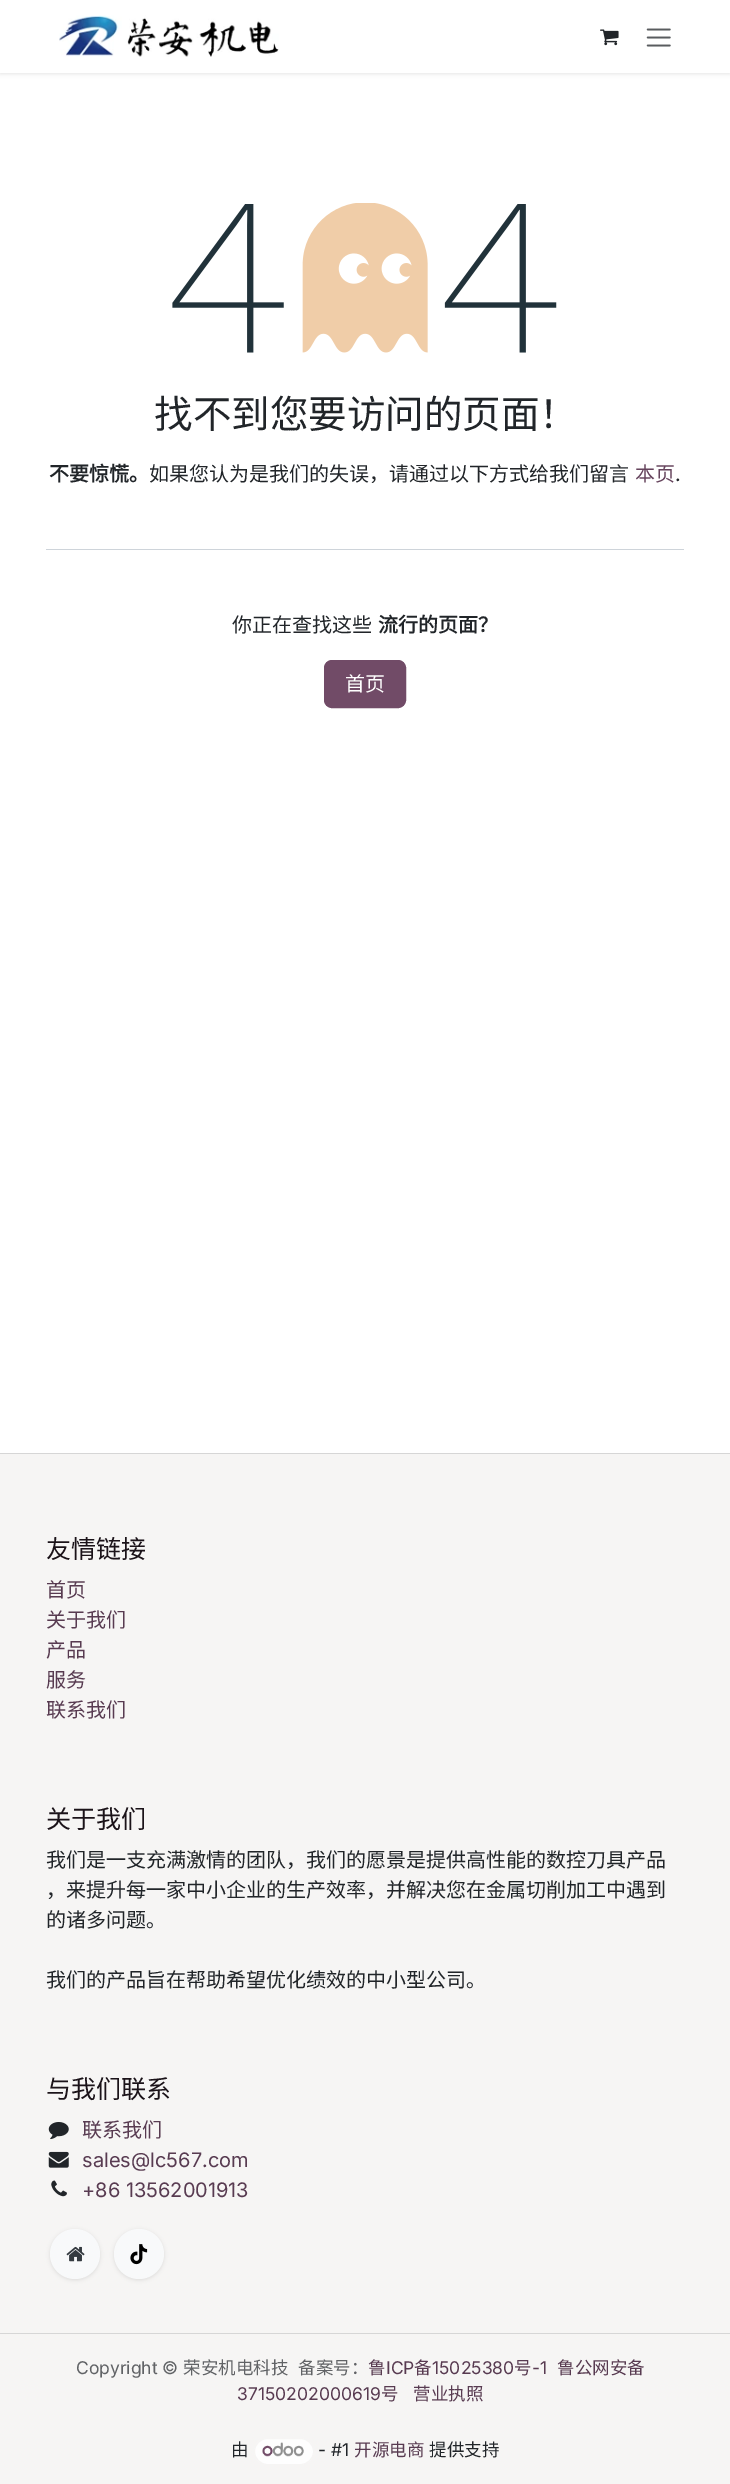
%!PS
<< /PageSize [730 2484] /PageUsesTransparency true >> setpagedevice
/rgb { dup -16 bitshift 255 div exch dup -8 bitshift 255 and 255 div exch 255 and 255 div setrgbcolor } def
/font { [ exch dup neg 0 0 3 -1 roll 0 0 ] selectfont } def
/text { moveto show } def
/alpha { dup .setfillconstantalpha .setstrokeconstantalpha } def
/circle { newpath 0 360 arc closepath } def
/roundrect { 5 dict begin { /r /h /w /y /x } { exch def } forall
  x r add y moveto x w add y 2 copy h add r arct x w add y h add x 1 index r arct
  x y h add x y r arct x y 2 copy exch w add exch r arct closepath end } def
/shadow { 12 dict begin { /a /b /q /h /w /y /x } { exch def } forall gsave /was 0 def
  9 -2 -9 { dup b mul 4 div /e exch def 1 sub .425 mul 2.718 exch exp 1 add a .99 .min exch div /now exch def
    1 1 now sub 1 was sub div sub alpha /was now def
    w h .min e 2 mul add 0 gt { x e sub y e sub w e 2 mul add h e 2 mul add
      q e add b .6 mul add w h .min 2 div e add .min 0 .max roundrect fill } if } for grestore end } def
/picture { 5 dict begin { /h /w /y /x /name } { exch def } forall
  gsave x y translate w h scale
  w h 8 [w 0 0 h 0 0] name (r) file false 3 colorimage grestore end } def
0 .pushpdf14devicefilter
0 2484 translate 1 -1 scale
4 setmiterlimit
/s1 { /NotoSansCJKSC-Regular 38.5 font 16#212529 rgb } def
/s2 { /NotoSansCJKSC-Bold 20 font 16#212529 rgb } def
/s3 { /NotoSansCJKSC-Regular 20 font 16#212529 rgb } def
/s4 { /NotoSansCJKSC-Regular 20 font 16#65435C rgb } def
/s5 { /Inter-Regular 20 font 16#212529 rgb } def
/s6 { /NotoSansCJKSC-Regular 20 font 16#FFFFFF rgb } def
/s7 { /NotoSansCJKSC-Regular 25 font 16#1B1319 rgb } def
/s8 { /NotoSansCJKSC-Regular 20 font 16#583B51 rgb } def
/s9 { /Inter-Regular 20 font 16#583B51 rgb } def
/s10 { /Inter-Regular 17.5 font 16#616366 rgb } def
/s11 { /NotoSansCJKSC-Regular 17.5 font 16#616366 rgb } def
/s12 { /NotoSansCJKSC-Regular 17.5 font 16#583B51 rgb } def
/s13 { /Inter-Regular 17.5 font 16#583B51 rgb } def
/s14 { /NotoSansCJKSC-Regular 17.5 font 16#212529 rgb } def
/s15 { /Inter-Regular 17.5 font 16#212529 rgb } def
16#FFFFFF rgb
0 0 730 2484 rectfill
16#000000 rgb
0 1 730 73 0 2 0.1 shadow
16#FFFFFF rgb
0 0 730 73 rectfill
(pic1.raw) 59 15 220 42 picture
(pic2.raw) 600 29 19 17 picture
(pic3.raw) 646 28 25 19 picture
(pic4.raw) 172 203 385 150 picture
s1
(找不到您要访问的页面！) 154 428 text
s2
(不要惊慌。) 49 481 text
s3
(如果您认为是我们的失误，请通过以下方式给我们留言) 149 481 text
s4
(本页) 635 481 text
s5
(.) 675 481 text
16#CED4DA rgb
46 549 638 1 rectfill
s3
(你正在查找这些) 232 632 text
s2
(流行的页面？) 378 632 text
16#714B67 rgb
324.5 660.5 81 47 7.5 roundrect gsave fill grestore
stroke
s6
(首页) 345 691 text
16#F6F5F4 rgb
0 1454 730 1030 rectfill
16#D6D6D6 rgb
0 1453 730 1 rectfill
0 2333 730 1 rectfill
s7
(友情链接) 46 1558 text
s8
(首页) 46 1597 text
(关于我们) 46 1627 text
(产品) 46 1657 text
(服务) 46 1687 text
(联系我们) 46 1717 text
s7
(关于我们) 46 1828 text
s3
(我们是一支充满激情的团队，我们的愿景是提供高性能的数控刀具产品) 46 1867 text
(，来提升每一家中小企业的生产效率，并解决您在金属切削加工中遇到) 46 1897 text
(的诸多问题。) 46 1927 text
(我们的产品旨在帮助希望优化绩效的中小型公司。) 46 1987 text
s7
(与我们联系) 46 2098 text
(pic5.raw) 48 2122 21 18 picture
s8
(联系我们) 82 2137 text
(pic6.raw) 48 2151 21 17 picture
s9
(sales@lc567.com) 82 2167 text
(pic7.raw) 51 2180 16 17 picture
(+86 13562001913) 82 2197 text
16#000000 rgb
50 2230 50 50 25 2 0.1 shadow
16#F8F9FA rgb
75 2254 25 circle fill
(pic8.raw) 66 2246 19 16 picture
16#000000 rgb
114 2230 50 50 25 2 0.1 shadow
16#F8F9FA rgb
139 2254 25 circle fill
(pic9.raw) 130 2244 18 21 picture
s10
(Copyright ©) 76 2374 text
s11
(荣安机电科技) 183 2374 text
(备案号：) 298 2374 text
s12
(鲁) 368 2374 text
s13
(ICP) 386 2374 text
s12
(备) 414 2374 text
s13
(15025380) 432 2374 text
s12
(号) 514 2374 text
s13
(-1) 532 2374 text
s12
(鲁公网安备) 557 2374 text
s13
(37150202000619) 237 2400 text
s12
(号) 381 2400 text
(营业执照) 413 2400 text
s14
(由) 231 2456 text
16#FEFEFE rgb
254.5 2438.5 59 26 13 roundrect gsave fill grestore
16#F6F5F4 rgb
stroke
(pic10.raw) 262 2442 42 15 picture
s15
(- #1) 318 2456 text
s12
(开源电商) 354 2456 text
s14
(提供支持) 429 2456 text
.poppdf14devicefilter showpage
